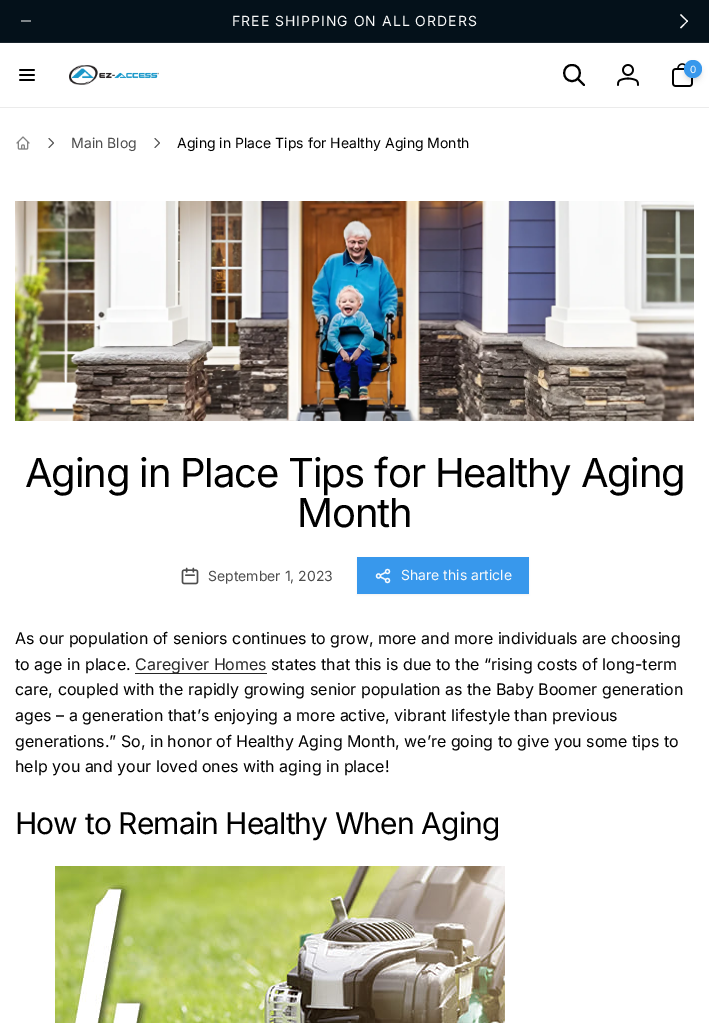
%!PS
<< /PageSize [709 1023] /PageUsesTransparency true >> setpagedevice
/rgb { dup -16 bitshift 255 div exch dup -8 bitshift 255 and 255 div exch 255 and 255 div setrgbcolor } def
/font { [ exch dup neg 0 0 3 -1 roll 0 0 ] selectfont } def
/text { moveto show } def
/alpha { dup .setfillconstantalpha .setstrokeconstantalpha } def
/circle { newpath 0 360 arc closepath } def
/roundrect { 5 dict begin { /r /h /w /y /x } { exch def } forall
  x r add y moveto x w add y 2 copy h add r arct x w add y h add x 1 index r arct
  x y h add x y r arct x y 2 copy exch w add exch r arct closepath end } def
/shadow { 12 dict begin { /a /b /q /h /w /y /x } { exch def } forall gsave /was 0 def
  9 -2 -9 { dup b mul 4 div /e exch def 1 sub .425 mul 2.718 exch exp 1 add a .99 .min exch div /now exch def
    1 1 now sub 1 was sub div sub alpha /was now def
    w h .min e 2 mul add 0 gt { x e sub y e sub w e 2 mul add h e 2 mul add
      q e add b .6 mul add w h .min 2 div e add .min 0 .max roundrect fill } if } for grestore end } def
/picture { 5 dict begin { /h /w /y /x /name } { exch def } forall
  gsave x y translate w h scale
  w h 8 [w 0 0 h 0 0] name (r) file false 3 colorimage grestore end } def
0 .pushpdf14devicefilter
0 1023 translate 1 -1 scale
4 setmiterlimit
/s1 { /Inter-Regular 10 font 16#FAFAFA rgb } def
/s2 { /Inter-Regular 14 font 16#4D4D4D rgb } def
/s3 { /Inter-Regular 14 font 16#000000 rgb } def
/s4 { /Inter-Regular 14 font 16#FAFAFA rgb } def
/s5 { /Inter-Regular 16 font 16#000000 rgb } def
/s6 { /Inter-Regular 16 font 16#262626 rgb } def
16#FFFFFF rgb
0 0 709 1023 rectfill
16#04111A rgb
0 0 709 42 rectfill
16#18242C rgb
0 42 709 1 rectfill
16#7F868A rgb
21 20 10 2 rectfill
/Inter-Regular 14 font
16#FAFAFA rgb
232 26 moveto 1 0 (FREE SHIPPING ON ALL ORDERS) ashow
680 15 moveto 681 14 lineto 688 21 lineto 687.5 22 lineto closepath fill
687.5 20.5 moveto 688 21 lineto 681 28.5 lineto 680 27.5 lineto closepath fill
16#EBEBEB rgb
0 107 709 1 rectfill
(pic1.raw) 19 69 16 12 picture
(pic2.raw) 69 65 90 20 picture
16#000000 rgb
2 setlinewidth
1 setlinecap
1 setlinejoin
584 85 moveto 577.5 78.5 lineto 572 81 moveto 582.5 81 582.5 65 572 65 curveto 561.5 65 561.5 81 572 81 curveto closepath stroke
(pic3.raw) 617 64 22 22 picture
(pic4.raw) 672 63 21 24 picture
685 63 16 16 8 2 0.06 shadow
685 65 16 16 8 3 0.1 shadow
16#3898EC rgb
693 69 9 circle fill
s1
(0) 690 73 text
(pic5.raw) 16 136 14 14 picture
16#4D4D4D rgb
1 setlinewidth
49 138.5 moveto 53.5 143 lineto 49 147.5 lineto stroke
s2
(Main Blog) 71 148 text
155 138.5 moveto 159.5 143 lineto 155 147.5 lineto stroke
s3
(Aging in Place Tips for Healthy Aging Month) 177 148 text
(pic6.raw) 15 201 679 220 picture
/Inter-Regular 40 font
25 487 moveto -1.2 0 (Aging in Place Tips for Healthy Aging) ashow
297 527 moveto -1.2 0 (Month) ashow
(pic7.raw) 181 567 18 18 picture
s2
(September 1, 2023) 208 581 text
16#000000 rgb
357 558 172 37 0 1 0.05 shadow
16#3898EC rgb
357 557 172 37 rectfill
(pic8.raw) 375 568 16 16 picture
s4
(Share this article) 401 580 text
s5
(As our population of seniors continues to grow, more and more individuals are choosing) 15 644 text
(to age in place.) 15 670 text
16#262626 rgb
135 673 132 1 rectfill
(Caregiver Homes) 135 670 text
s5
(states that this is due to the “rising costs of long-term) 271 670 text
(care, coupled with the rapidly growing senior population as the Baby Boomer generation) 15 695 text
(ages – a generation that’s enjoying a more active, vibrant lifestyle than previous) 15 721 text
(generations.” So, in honor of Healthy Aging Month, we’re going to give you some tips to) 15 747 text
(help you and your loved ones with aging in place!) 15 772 text
/Inter-Regular 30 font
15 834 moveto -0.9 0 (How to Remain Healthy When Aging) ashow
(pic9.raw) 55 866 450 157 picture
.poppdf14devicefilter showpage
